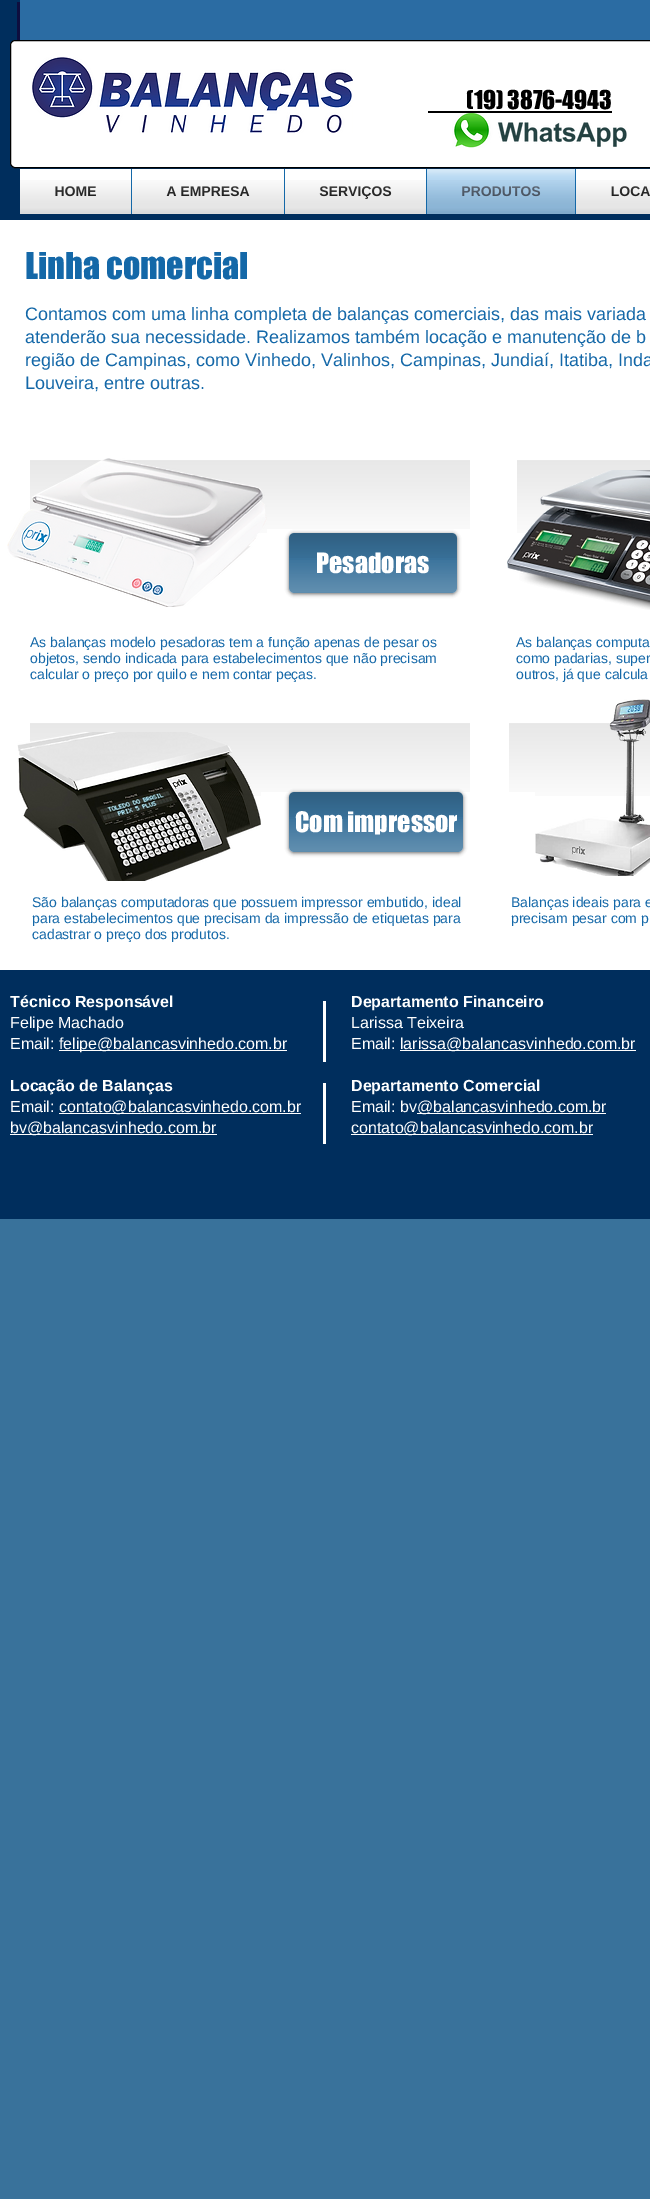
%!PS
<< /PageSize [650 2199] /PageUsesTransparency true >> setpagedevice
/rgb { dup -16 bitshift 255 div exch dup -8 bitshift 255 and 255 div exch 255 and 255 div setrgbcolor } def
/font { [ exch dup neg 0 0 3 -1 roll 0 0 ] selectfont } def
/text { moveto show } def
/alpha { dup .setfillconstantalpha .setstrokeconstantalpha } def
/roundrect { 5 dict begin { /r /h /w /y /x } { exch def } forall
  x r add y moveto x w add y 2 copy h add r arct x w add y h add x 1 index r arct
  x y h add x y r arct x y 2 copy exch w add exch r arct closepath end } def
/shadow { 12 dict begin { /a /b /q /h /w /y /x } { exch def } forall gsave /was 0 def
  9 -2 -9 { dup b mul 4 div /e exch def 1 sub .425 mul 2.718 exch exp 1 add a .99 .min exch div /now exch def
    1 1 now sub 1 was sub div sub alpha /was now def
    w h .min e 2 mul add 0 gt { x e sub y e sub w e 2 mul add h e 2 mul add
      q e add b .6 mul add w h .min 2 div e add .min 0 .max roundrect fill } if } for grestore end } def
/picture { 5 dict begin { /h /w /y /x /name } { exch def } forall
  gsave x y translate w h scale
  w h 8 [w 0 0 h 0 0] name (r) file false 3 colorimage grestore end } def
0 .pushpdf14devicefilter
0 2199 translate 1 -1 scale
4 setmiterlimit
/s1 { /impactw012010-Regular 24 font 16#000000 rgb } def
/s2 { /LiberationSans-Bold 14 font 16#000000 rgb } def
/s3 { /LiberationSans-Bold 14 font 16#313E4F rgb } def
/s4 { /impactw012010-Regular 34 font 16#1468A8 rgb } def
/s5 { /LiberationSans-Regular 18 font 16#1468A8 rgb } def
/s6 { /impactw012010-Regular 26 font 16#FFFFFF rgb } def
/s7 { /LiberationSans-Regular 14 font 16#1468A8 rgb } def
/s8 { /LiberationSans-Bold 16 font 16#FFFFFF rgb } def
/s9 { /LiberationSans-Regular 16 font 16#FFFFFF rgb } def
16#39729B rgb
0 0 650 2199 rectfill
16#002E5D rgb
0 0 650 220 rectfill
16#0E0E3F rgb
17 2 moveto 17 50 lineto 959 50 lineto 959 46 lineto 20 46 lineto 20 2 lineto closepath fill
16#2B6CA3 rgb
20 0 630 40 rectfill
16#FFFFFF rgb
10.5 40.5 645 127 4.5 roundrect gsave fill grestore
16#000000 rgb
stroke
(pic1.raw) 32 57 321 76 picture
s1
(\(19\) 3876-4943) 466 109 text
428 111 184 2 rectfill
(pic2.raw) 452 113 175 35 picture
16#FFFFFF rgb
20 169 111 45 rectfill
s2
(HOME) 55 196 text
(pic3.raw) 55 186 41 10 picture
(pic4.raw) 20 180 111 34 picture
16#FFFFFF rgb
132 169 152 45 rectfill
16#1468A8 rgb
131 169 1 45 rectfill
s2
(A EMPRESA) 166 196 text
(pic5.raw) 167 186 82 10 picture
(pic6.raw) 132 180 152 34 picture
16#FFFFFF rgb
285 169 141 45 rectfill
16#1468A8 rgb
284 169 1 45 rectfill
s2
(SERVIÇOS) 319 196 text
(pic7.raw) 320 186 71 13 picture
(pic8.raw) 285 180 141 34 picture
16#95C6EC rgb
427 169 148 45 rectfill
16#1468A8 rgb
426 169 1 45 rectfill
s3
(PRODUTOS) 461 196 text
(pic9.raw) 427 169 148 42 picture
(pic10.raw) 427 180 148 34 picture
16#FFFFFF rgb
576 169 74 45 rectfill
16#1468A8 rgb
575 169 1 45 rectfill
s2
(LOCA) 611 196 text
(pic11.raw) 611 186 39 10 picture
(pic12.raw) 576 180 74 34 picture
16#FFFFFF rgb
0 220 650 750 rectfill
s4
(Linha comercial) 25 279 text
s5
(Contamos com uma linha completa de balanças comerciais, das mais variada) 25 320 text
(atenderão sua necessidade. Realizamos também locação e manutenção de b) 25 343 text
(região de Campinas, como Vinhedo, Valinhos, Campinas, Jundiaí, Itatiba, Inda) 25 366 text
(Louveira, entre outras.) 25 389 text
(pic13.raw) 30 460 440 69 picture
(pic14.raw) 7 458 260 149 picture
16#000000 rgb
289 534 168 60 5 2 0.6 shadow
16#39729B rgb
289 533 168 60 5 roundrect fill
(pic15.raw) 289 533 168 25 picture
(pic16.raw) 289 560 168 33 picture
s6
(Pesadoras) 316 573 text
(pic17.raw) 517 460 133 69 picture
(pic18.raw) 507 470 143 140 picture
s7
(As balanças modelo pesadoras tem a função apenas de pesar os) 30 647 text
(objetos, sendo indicada para estabelecimentos que não precisam) 30 663 text
(calcular o preço por quilo e nem contar peças.) 30 679 text
(As balanças computa) 516 647 text
(como padarias, super) 516 663 text
(outros, já que calcula) 516 679 text
(pic13.raw) 30 723 440 69 picture
(pic19.raw) 17 732 244 149 picture
16#000000 rgb
289 793 174 60 5 2 0.6 shadow
16#39729B rgb
289 792 174 60 5 roundrect fill
(pic20.raw) 289 792 174 25 picture
(pic21.raw) 289 819 174 33 picture
s6
(Com impressor) 295 832 text
(pic23.raw) 509 723 141 69 picture
(pic22.raw) 535 699 115 177 picture
s7
(São balanças computadoras que possuem impressor embutido, ideal) 32 907 text
(para estabelecimentos que precisam da impressão de etiquetas para) 32 923 text
(cadastrar o preço dos produtos.) 32 939 text
(Balanças ideais para e) 511 907 text
(precisam pesar com p) 511 923 text
16#002E5D rgb
0 970 650 249 rectfill
s8
(Técnico Responsável) 10 1007 text
s9
(Felipe Machado) 10 1028 text
(Email:) 10 1049 text
59 1050 228 1 rectfill
(felipe@balancasvinhedo.com.br) 59 1049 text
323 1001 3 61 rectfill
s8
(Departamento Financeiro) 351 1007 text
s9
(Larissa Teixeira) 351 1028 text
(Email: larissa) 351 1049 text
400 1050 236 1 rectfill
(@balancasvinhedo.com.br) 446 1049 text
s8
(Locação de Balanças) 10 1091 text
s9
(Email:) 10 1112 text
59 1113 242 1 rectfill
(contato@balancasvinhedo.com.br) 59 1112 text
10 1134 207 1 rectfill
(bv@balancasvinhedo.com.br) 10 1133 text
323 1083 3 61 rectfill
s8
(Departamento Comercial) 351 1091 text
s9
(Email: bv) 351 1112 text
417 1113 189 1 rectfill
(@balancasvinhedo.com.br) 417 1112 text
351 1134 242 1 rectfill
(contato@balancasvinhedo.com.br) 351 1133 text
.poppdf14devicefilter showpage
